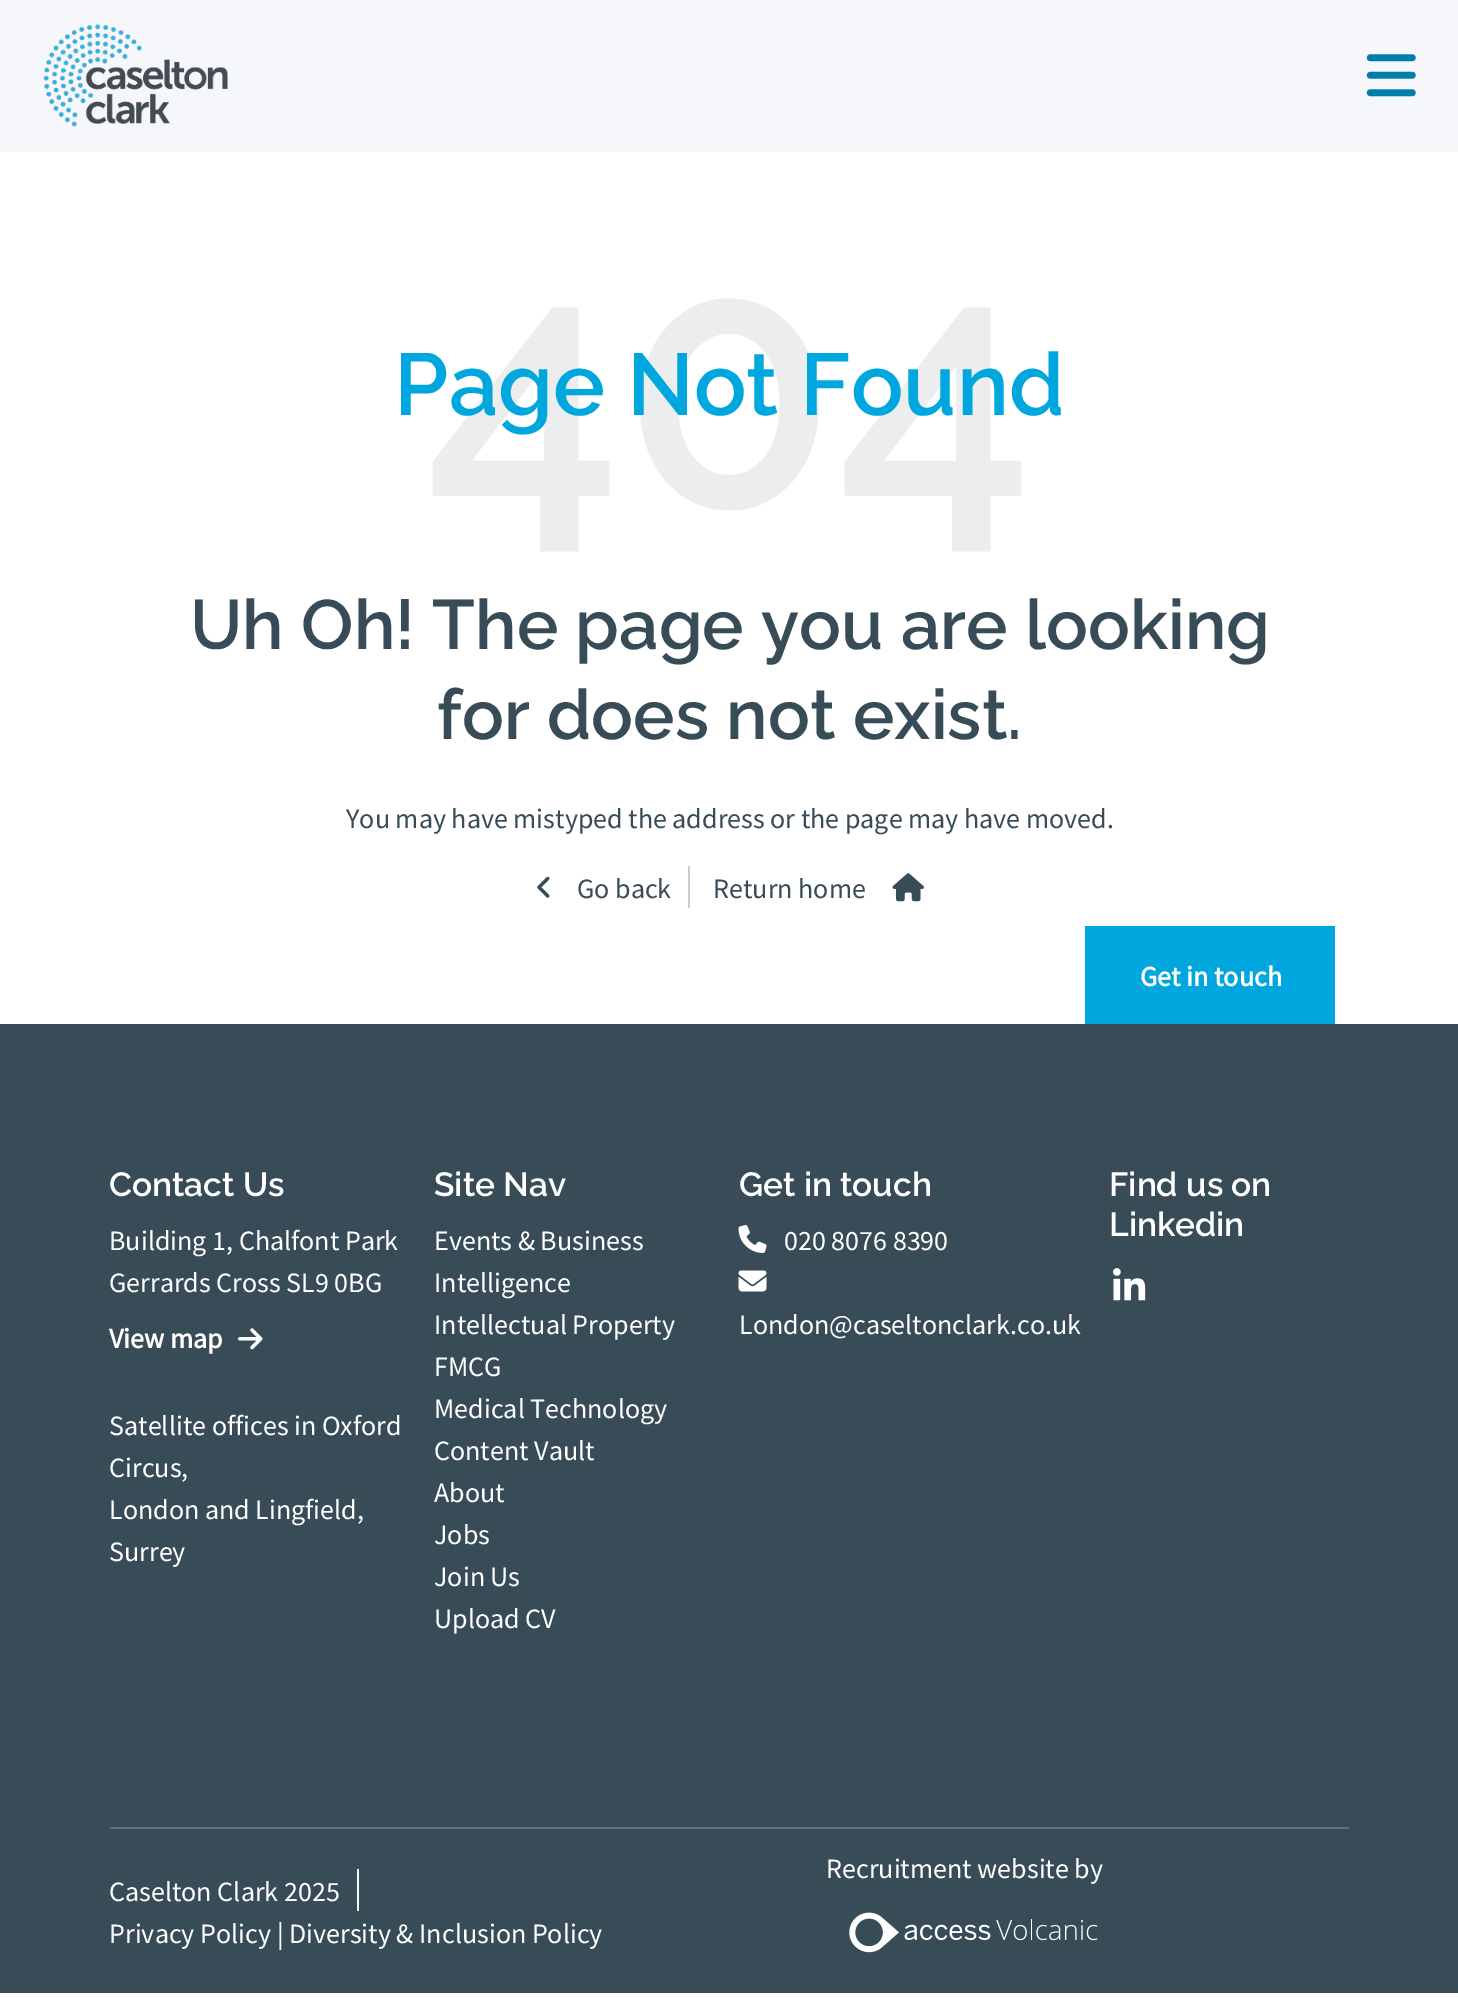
%!PS
<< /PageSize [1458 2014] >> setpagedevice
/rgb { dup -16 bitshift 255 div exch dup -8 bitshift 255 and 255 div exch 255 and 255 div setrgbcolor } def
/font { [ exch dup neg 0 0 3 -1 roll 0 0 ] selectfont } def
/text { moveto show } def
/picture { 5 dict begin { /h /w /y /x /name } { exch def } forall
  gsave x y translate w h scale
  w h 8 [w 0 0 h 0 0] name (r) file false 3 colorimage grestore end } def
0 2014 translate 1 -1 scale
4 setmiterlimit
/s1 { /Raleway-SemiBold 350 font 16#EBEDEE rgb } def
/s2 { /Raleway-SemiBold 87.5 font 16#00A7DE rgb } def
/s3 { /Raleway-SemiBold 69.7 font 16#374C56 rgb } def
/s4 { /SourceSansPro-Regular 28 font 16#374C56 rgb } def
/s5 { /SourceSansPro-Bold 28 font 16#FFFFFF rgb } def
/s6 { /Raleway-SemiBold 33.5 font 16#FFFFFF rgb } def
/s7 { /SourceSansPro-Regular 28 font 16#FFFFFF rgb } def
16#FFFFFF rgb
0 0 1458 2014 rectfill
16#F5F7FA rgb
0 0 1458 152 rectfill
(pic1.raw) 43 24 185 103 picture
(pic2.raw) 1366 54 50 43 picture
s1
(404) 425 507 text
s2
(Page Not Found) 394 415 text
s3
(Uh Oh! The page you are looking) 190 649 text
(for does not exist.) 437 739 text
s4
(You may have mistyped the address or the page may have moved.) 346 828 text
16#CCCCCC rgb
688 866 2 42 rectfill
(pic3.raw) 537 876 13 22 picture
s4
(Go back) 577 898 text
(Return home) 713 898 text
(pic4.raw) 892 873 32 29 picture
0 1024 1458 969 rectfill
16#00A7DE rgb
1085 926 250 98 rectfill
s5
(Get in touch) 1140 986 text
16#5F7078 rgb
110 1827 1239 2 rectfill
s6
(Contact Us) 109 1196 text
s7
(Building 1, Chalfont Park) 109 1250 text
(Gerrards Cross SL9 0BG) 109 1292 text
s5
(View map) 109 1348 text
(pic5.raw) 238 1328 25 22 picture
s7
(Satellite offices in Oxford) 109 1435 text
(Circus,) 109 1477 text
(London and Lingfield,) 109 1519 text
(Surrey) 109 1561 text
s6
(Site Nav) 434 1196 text
s7
(Events & Business) 434 1250 text
(Intelligence) 434 1292 text
(Intellectual Property) 434 1334 text
(FMCG) 434 1376 text
(Medical Technology) 434 1418 text
(Content Vault) 434 1460 text
(About) 434 1502 text
(Jobs) 434 1544 text
(Join Us) 434 1586 text
(Upload CV) 434 1628 text
s6
(Get in touch) 739 1196 text
(pic6.raw) 738 1225 29 28 picture
s7
(020 8076 8390) 784 1250 text
(pic7.raw) 738 1270 29 22 picture
(London@caseltonclark.co.uk) 739 1334 text
s6
(Find us on) 1109 1196 text
(Linkedin) 1109 1236 text
(pic8.raw) 1113 1268 33 33 picture
s7
(Recruitment website by) 826 1878 text
(pic9.raw) 849 1912 249 41 picture
16#F5F7FA rgb
357 1869 2 42 rectfill
s7
(Caselton Clark 2025) 109 1901 text
(Privacy Policy | Diversity & Inclusion Policy) 109 1943 text
showpage
